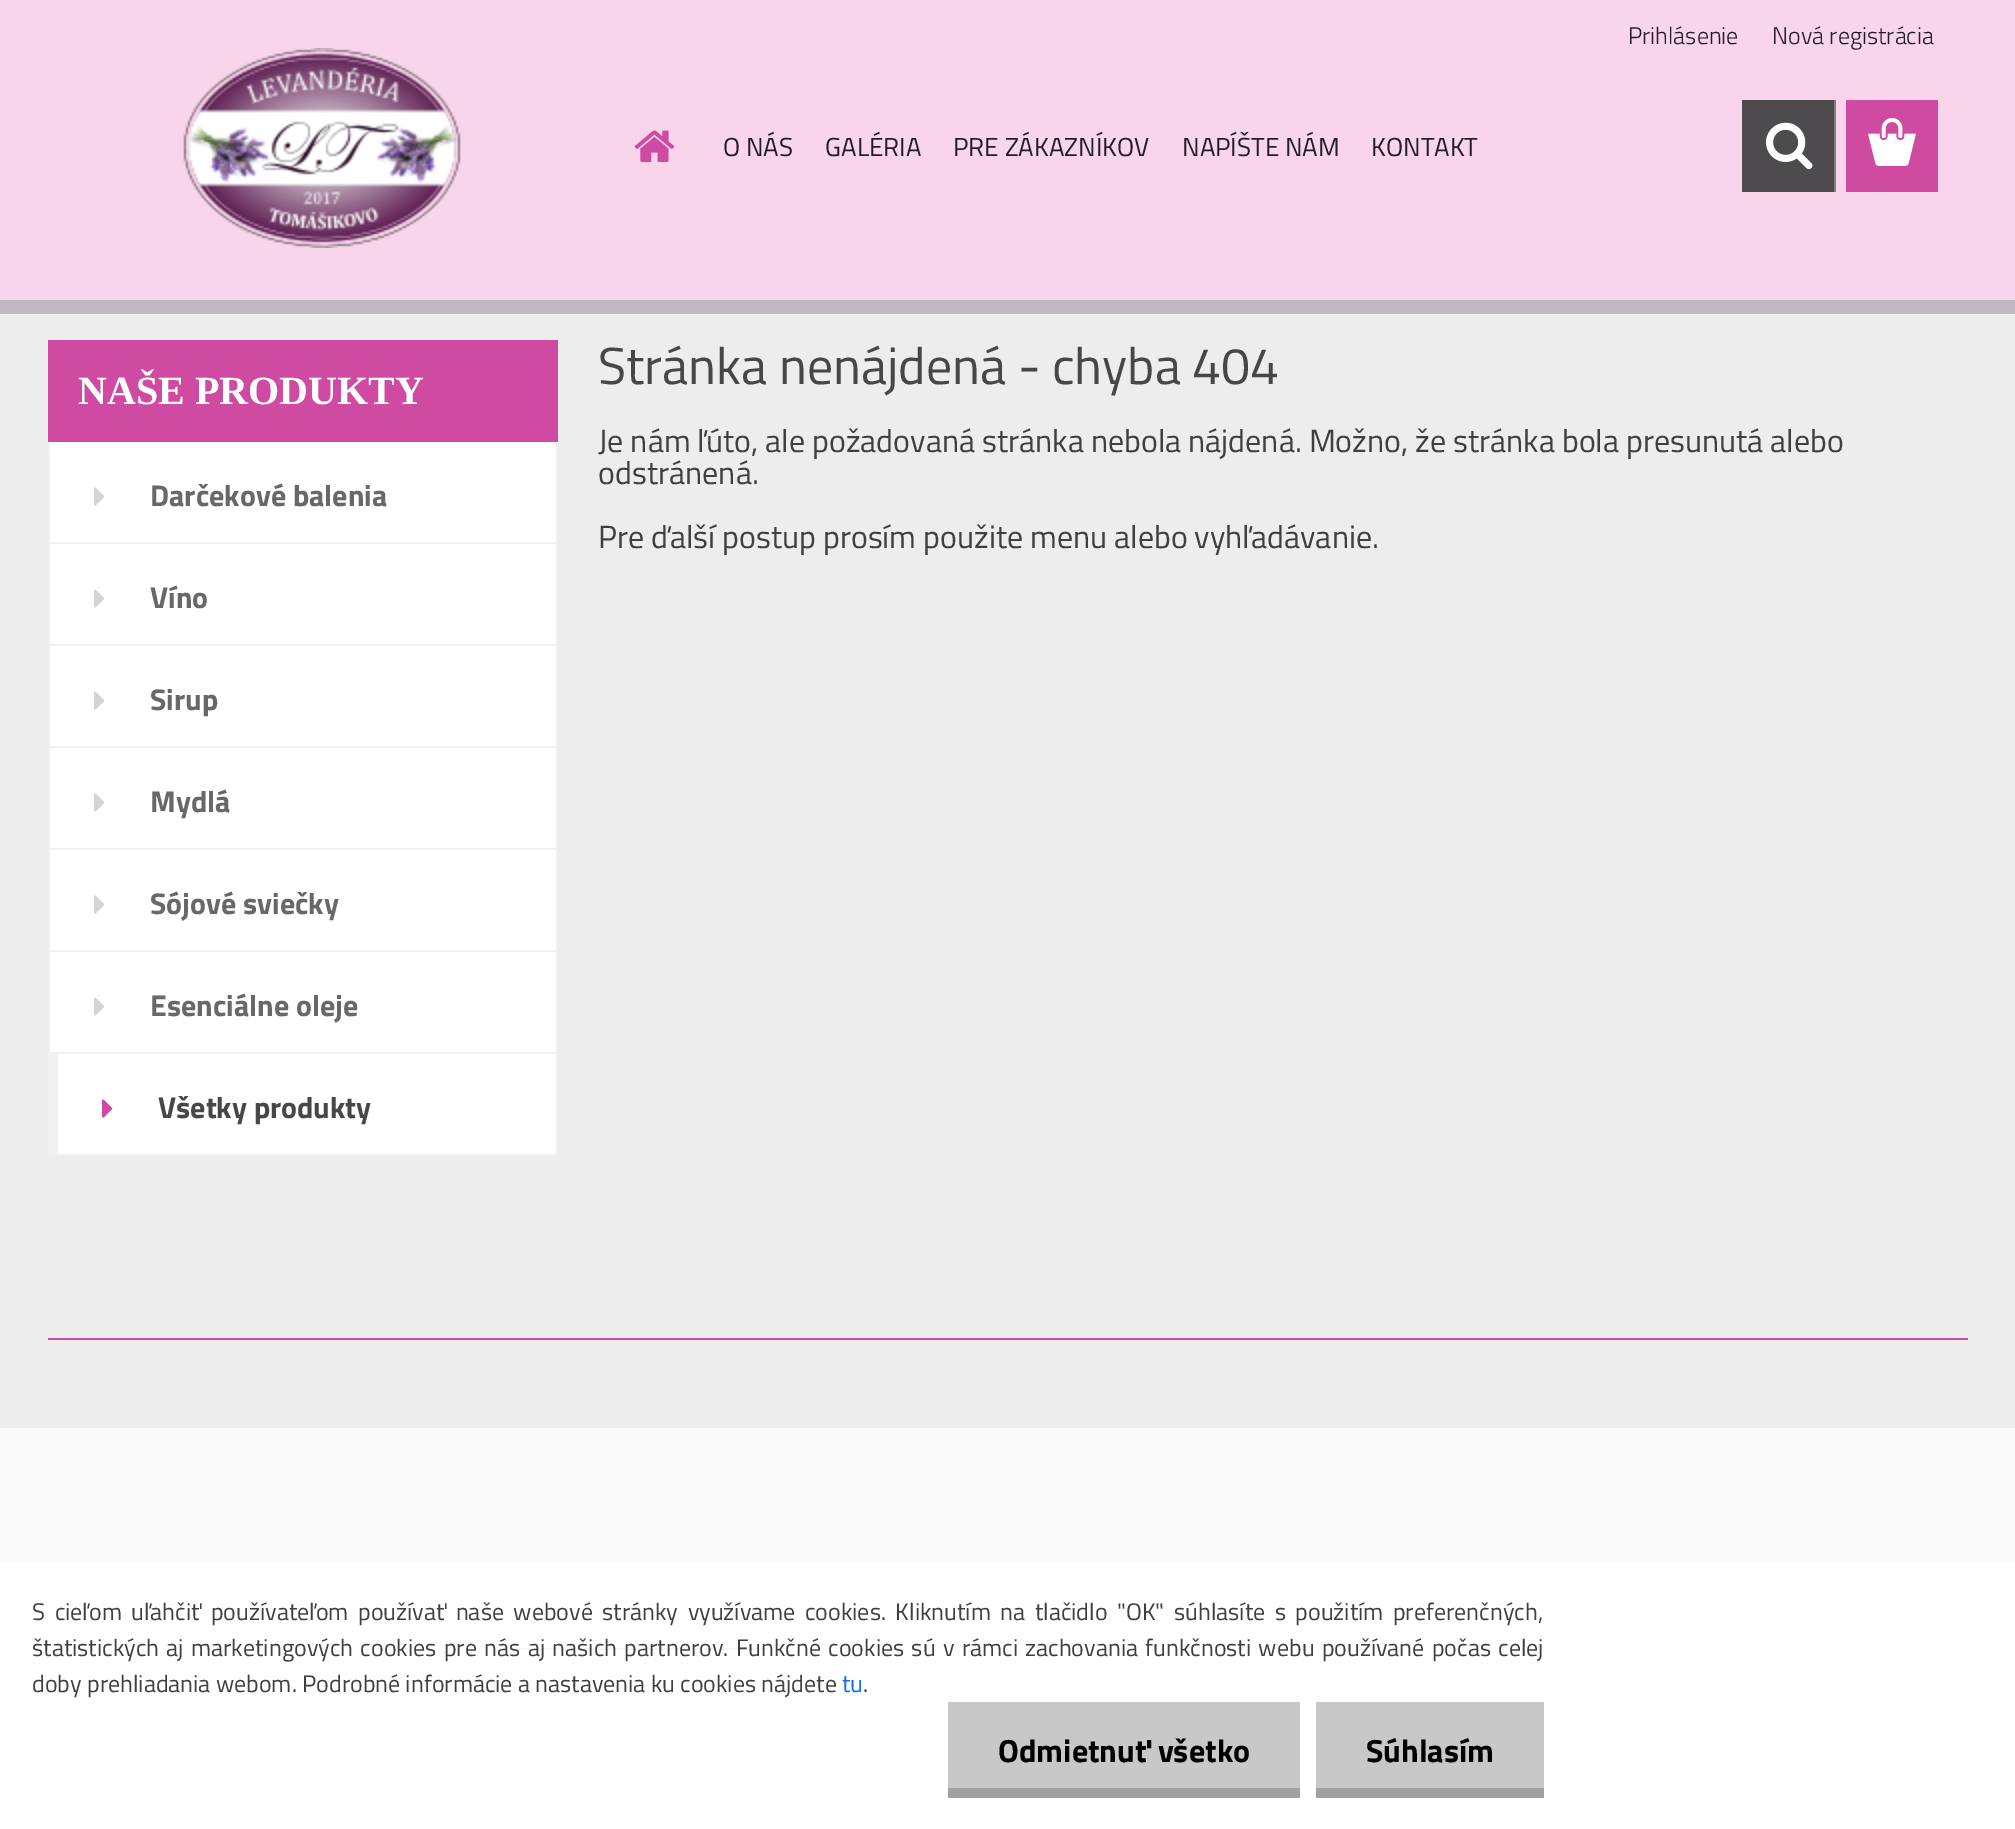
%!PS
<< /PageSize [2015 1829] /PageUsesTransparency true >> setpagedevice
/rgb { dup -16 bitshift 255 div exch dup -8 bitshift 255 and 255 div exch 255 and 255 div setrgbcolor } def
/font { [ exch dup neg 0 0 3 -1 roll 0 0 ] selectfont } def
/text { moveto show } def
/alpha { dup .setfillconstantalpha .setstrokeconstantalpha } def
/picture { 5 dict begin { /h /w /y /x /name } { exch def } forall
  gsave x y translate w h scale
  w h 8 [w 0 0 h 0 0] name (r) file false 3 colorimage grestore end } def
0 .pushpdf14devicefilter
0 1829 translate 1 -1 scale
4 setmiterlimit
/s1 { /TitilliumWeb-Light 24 font 16#231C24 rgb } def
/s2 { /LiberationSerif-Bold 40 font 16#FFFFFF rgb } def
/s3 { /TitilliumWeb-Bold 30 font 16#686868 rgb } def
/s4 { /TitilliumWeb-Bold 30 font 16#474747 rgb } def
/s5 { /TitilliumWeb-Regular 52 font 16#474747 rgb } def
/s6 { /TitilliumWeb-Regular 32 font 16#3F3F3F rgb } def
/s7 { /TitilliumWeb-Regular 26 font 16#231C24 rgb } def
/s8 { /TitilliumWeb-Regular 24 font 16#3F3F3F rgb } def
/s9 { /TitilliumWeb-Regular 24 font 16#0D6EFD rgb } def
/s10 { /TitilliumWeb-Bold 32 font 16#000000 rgb } def
16#FFFFFF rgb
0 0 2015 1829 rectfill
16#FAFAFA rgb
0 1428 2015 134 rectfill
16#EDEDED rgb
0 314 2015 1114 rectfill
16#F8D5EB rgb
0 0 2015 300 rectfill
s1
(Prihlásenie) 1628 44 text
(Nová registrácia) 1772 44 text
16#CF4BA2 rgb
1846 100 92 92 rectfill
(pic1.raw) 1868 118 48 48 picture
48 340 510 102 rectfill
s2
(NAŠE PRODUKTY) 78 404 text
50 442 506 100 rectfill
16#F0F0F0 rgb
556 442 2 714 rectfill
48 542 510 2 rectfill
48 442 2 102 rectfill
(pic2.raw) 94 487 11 19 picture
s3
(Darčekové balenia) 150 506 text
16#FFFFFF rgb
50 544 506 100 rectfill
16#F0F0F0 rgb
48 644 510 2 rectfill
48 544 2 102 rectfill
(pic2.raw) 94 589 11 19 picture
s3
(Víno) 150 608 text
16#FFFFFF rgb
50 646 506 100 rectfill
16#F0F0F0 rgb
48 746 510 2 rectfill
48 646 2 102 rectfill
(pic2.raw) 94 691 11 19 picture
s3
(Sirup) 150 710 text
16#FFFFFF rgb
50 748 506 100 rectfill
16#F0F0F0 rgb
48 848 510 2 rectfill
48 748 2 102 rectfill
(pic2.raw) 94 793 11 19 picture
s3
(Mydlá) 150 812 text
16#FFFFFF rgb
50 850 506 100 rectfill
16#F0F0F0 rgb
48 950 510 2 rectfill
48 850 2 102 rectfill
(pic2.raw) 94 895 11 19 picture
s3
(Sójové sviečky) 150 914 text
16#FFFFFF rgb
50 952 506 100 rectfill
16#F0F0F0 rgb
48 1052 510 2 rectfill
48 952 2 102 rectfill
(pic2.raw) 94 997 11 19 picture
s3
(Esenciálne oleje) 150 1016 text
16#FFFFFF rgb
58 1054 498 100 rectfill
16#F0F0F0 rgb
58 1154 500 2 rectfill
48 1054 10 102 rectfill
(pic3.raw) 102 1099 11 19 picture
s4
(Všetky produkty) 158 1118 text
s5
(Stránka nenájdená - chyba 404) 598 384 text
s6
(Je nám ľúto, ale požadovaná stránka nebola nájdená. Možno, že stránka bola presunutá alebo) 598 452 text
(odstránená.) 598 484 text
(Pre ďalší postup prosím použite menu alebo vyhľadávanie.) 598 548 text
16#CF4BA2 rgb
48 1338 1920 2 rectfill
16#BFBAC1 rgb
0 300 2015 14 rectfill
(pic4.raw) 183 48 278 200 picture
(pic5.raw) 634 130 41 32 picture
s7
(O NÁS) 723 156 text
(GALÉRIA) 825 156 text
(PRE ZÁKAZNÍKOV) 953 156 text
(NAPÍŠTE NÁM) 1182 156 text
(KONTAKT) 1371 156 text
16#4E4B4F rgb
1742 100 92 92 rectfill
(pic6.raw) 1766 122 47 48 picture
16#FFFFFF rgb
1834 100 2 92 rectfill
16#808080 rgb
1834 100 moveto 1836 100 lineto 1836 102 lineto closepath fill
1836 192 moveto 1834 192 lineto 1836 190 lineto closepath fill
0.5 alpha
16#000000 rgb
1834 192 moveto 1834 100 lineto 1836 102 lineto 1836 190 lineto closepath fill
1 alpha
16#F6F6F6 rgb
510 1648 258 2 rectfill
/TitilliumWeb-Regular 24 font
16#3F3F3F rgb
32 1620 moveto 4.25 0 32 (S cieľom uľahčiť používateľom používať naše webové stránky využívame cookies. Kliknutím na tlačidlo "OK" súhlasíte s použitím preferenčných,) widthshow
32 1656 moveto 2.1 0 32 (štatistických aj marketingových cookies pre nás aj našich partnerov. Funkčné cookies sú v rámci zachovania funkčnosti webu používané počas celej) widthshow
(doby prehliadania webom. Podrobné informácie a nastavenia ku cookies nájdete) 32 1692 text
s9
(tu) 842 1692 text
s8
(.) 863 1692 text
16#C8C8C8 rgb
948 1702 352 86 rectfill
16#A0A0A0 rgb
948 1788 352 10 rectfill
s10
(Odmietnuť všetko) 998 1762 text
16#C8C8C8 rgb
1316 1702 228 86 rectfill
16#A0A0A0 rgb
1316 1788 228 10 rectfill
s10
(Súhlasím) 1366 1762 text
.poppdf14devicefilter showpage
